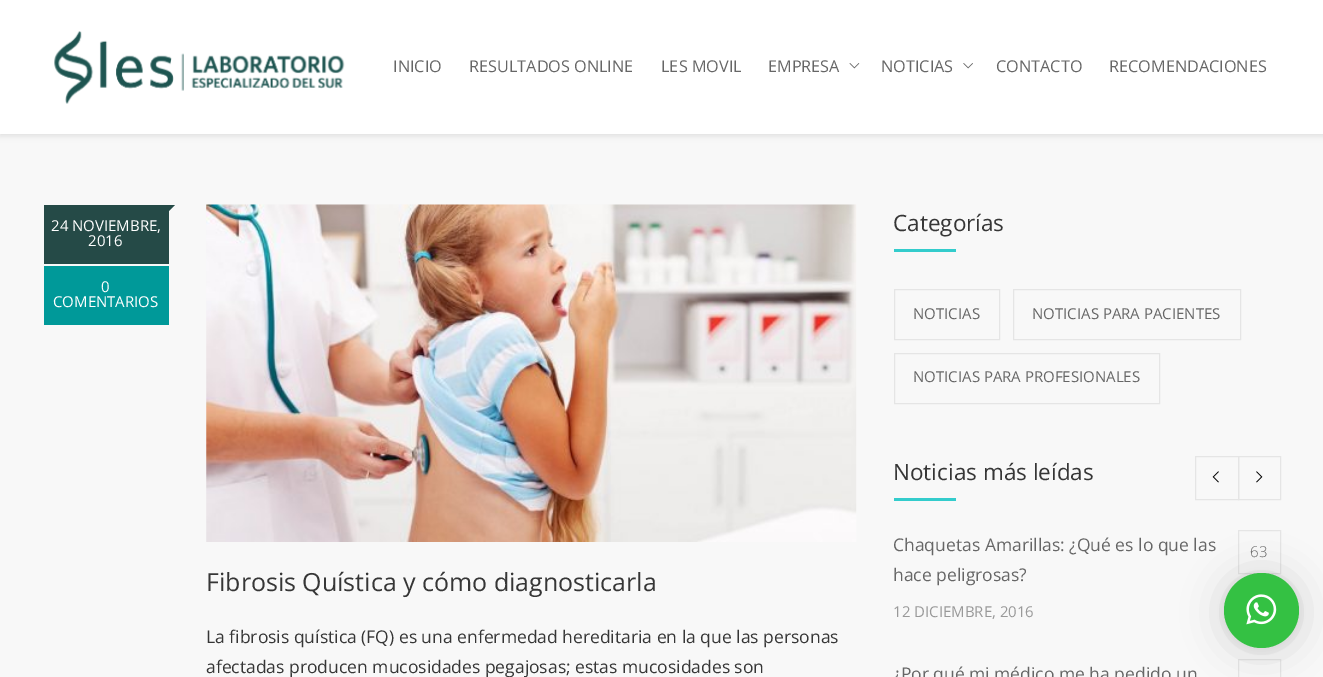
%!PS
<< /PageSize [1323 677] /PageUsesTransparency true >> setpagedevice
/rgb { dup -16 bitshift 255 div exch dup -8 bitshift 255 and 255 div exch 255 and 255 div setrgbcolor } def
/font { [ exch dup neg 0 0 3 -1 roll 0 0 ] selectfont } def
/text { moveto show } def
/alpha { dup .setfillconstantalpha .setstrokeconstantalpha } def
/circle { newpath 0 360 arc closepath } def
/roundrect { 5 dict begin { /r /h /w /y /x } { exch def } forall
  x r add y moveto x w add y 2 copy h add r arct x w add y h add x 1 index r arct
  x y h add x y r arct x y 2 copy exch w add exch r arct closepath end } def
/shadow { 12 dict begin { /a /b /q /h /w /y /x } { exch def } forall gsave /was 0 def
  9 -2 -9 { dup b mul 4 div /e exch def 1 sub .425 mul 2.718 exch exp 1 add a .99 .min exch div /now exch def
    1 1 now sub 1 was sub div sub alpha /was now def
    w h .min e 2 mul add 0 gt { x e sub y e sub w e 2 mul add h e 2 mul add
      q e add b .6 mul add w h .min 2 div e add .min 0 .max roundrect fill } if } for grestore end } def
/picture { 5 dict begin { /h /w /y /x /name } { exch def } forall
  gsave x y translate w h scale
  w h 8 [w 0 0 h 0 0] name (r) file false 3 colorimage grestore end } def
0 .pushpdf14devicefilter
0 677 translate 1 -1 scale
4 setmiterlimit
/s1 { /OpenSans-Regular 16.25 font 16#666666 rgb } def
/s2 { /OpenSans-Regular 15 font 16#FFFFFF rgb } def
/s3 { /OpenSans-Regular 25 font 16#363636 rgb } def
/s4 { /OpenSans-Regular 17.5 font 16#363636 rgb } def
/s5 { /OpenSans-Regular 22.5 font 16#363636 rgb } def
/s6 { /OpenSans-Regular 15 font 16#666666 rgb } def
/s7 { /OpenSans-Regular 17.5 font 16#666666 rgb } def
/s8 { /OpenSans-Light 15 font 16#666666 rgb } def
/s9 { /OpenSans-Regular 15 font 16#999999 rgb } def
16#F8F8F8 rgb
0 0 1323 677 rectfill
16#000000 rgb
0 3 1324 133 0 3 0.1 shadow
16#FFFFFF rgb
0 0 1323 134 rectfill
(pic1.raw) 54 31 291 73 picture
s1
(INICIO) 393 72 text
(RESULTADOS ONLINE) 469 72 text
(LES MOVIL) 661 72 text
(EMPRESA) 768 72 text
(pic2.raw) 849 63 11 6 picture
(NOTICIAS) 881 72 text
(pic3.raw) 963 63 10 6 picture
(CONTACTO) 996 72 text
(RECOMENDACIONES) 1109 72 text
16#254A47 rgb
169 205 moveto 175 205 lineto 169 211 lineto closepath fill
44 205 125 59 rectfill
s2
(24 NOVIEMBRE,) 51 231 text
(2016) 88 246 text
16#009999 rgb
44 266 125 59 rectfill
s2
(0) 101 292 text
(COMENTARIOS) 53 307 text
(pic4.raw) 206 204 651 338 picture
s3
(Fibrosis Quística y cómo diagnosticarla) 206 591 text
s4
(La fibrosis quística \(FQ\) es una enfermedad hereditaria en la que las personas) 206 643 text
(afectadas producen mucosidades pegajosas; estas mucosidades son) 206 673 text
s5
(Categorías) 893 231 text
16#33CCCC rgb
894 249 62 3 rectfill
16#E5E5E5 rgb
894.5 289.5 105 50 rectstroke
s6
(NOTICIAS) 913 319 text
16#E5E5E5 rgb
1013.5 289.5 227 50 rectstroke
s6
(NOTICIAS PARA PACIENTES) 1032 319 text
16#E5E5E5 rgb
894.5 353.5 265 50 rectstroke
s6
(NOTICIAS PARA PROFESIONALES) 913 382 text
s5
(Noticias más leídas) 893 480 text
16#33CCCC rgb
894 498 62 3 rectfill
16#E5E5E5 rgb
1195.5 456.5 43 43 rectstroke
(pic5.raw) 1212 471 7 12 picture
1238.5 456.5 42 43 rectstroke
(pic6.raw) 1256 471 7 12 picture
s7
(Chaquetas Amarillas: ¿Qué es lo que las) 893 551 text
(hace peligrosas?) 893 581 text
16#E5E5E5 rgb
1238.5 530.5 42 43 rectstroke
s8
(63) 1250 557 text
s9
(12 DICIEMBRE, 2016) 893 617 text
s7
(¿Por qué mi médico me ha pedido un) 893 680 text
16#E5E5E5 rgb
1238.5 659.5 42 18 rectstroke
16#000000 rgb
1224 575 75 75 37.5 20 0.16 shadow
1224 574 75 75 37.5 4 0.06 shadow
16#34C143 rgb
1261.5 610.5 37.5 circle fill
(pic7.raw) 1246 594 31 31 picture
.poppdf14devicefilter showpage
